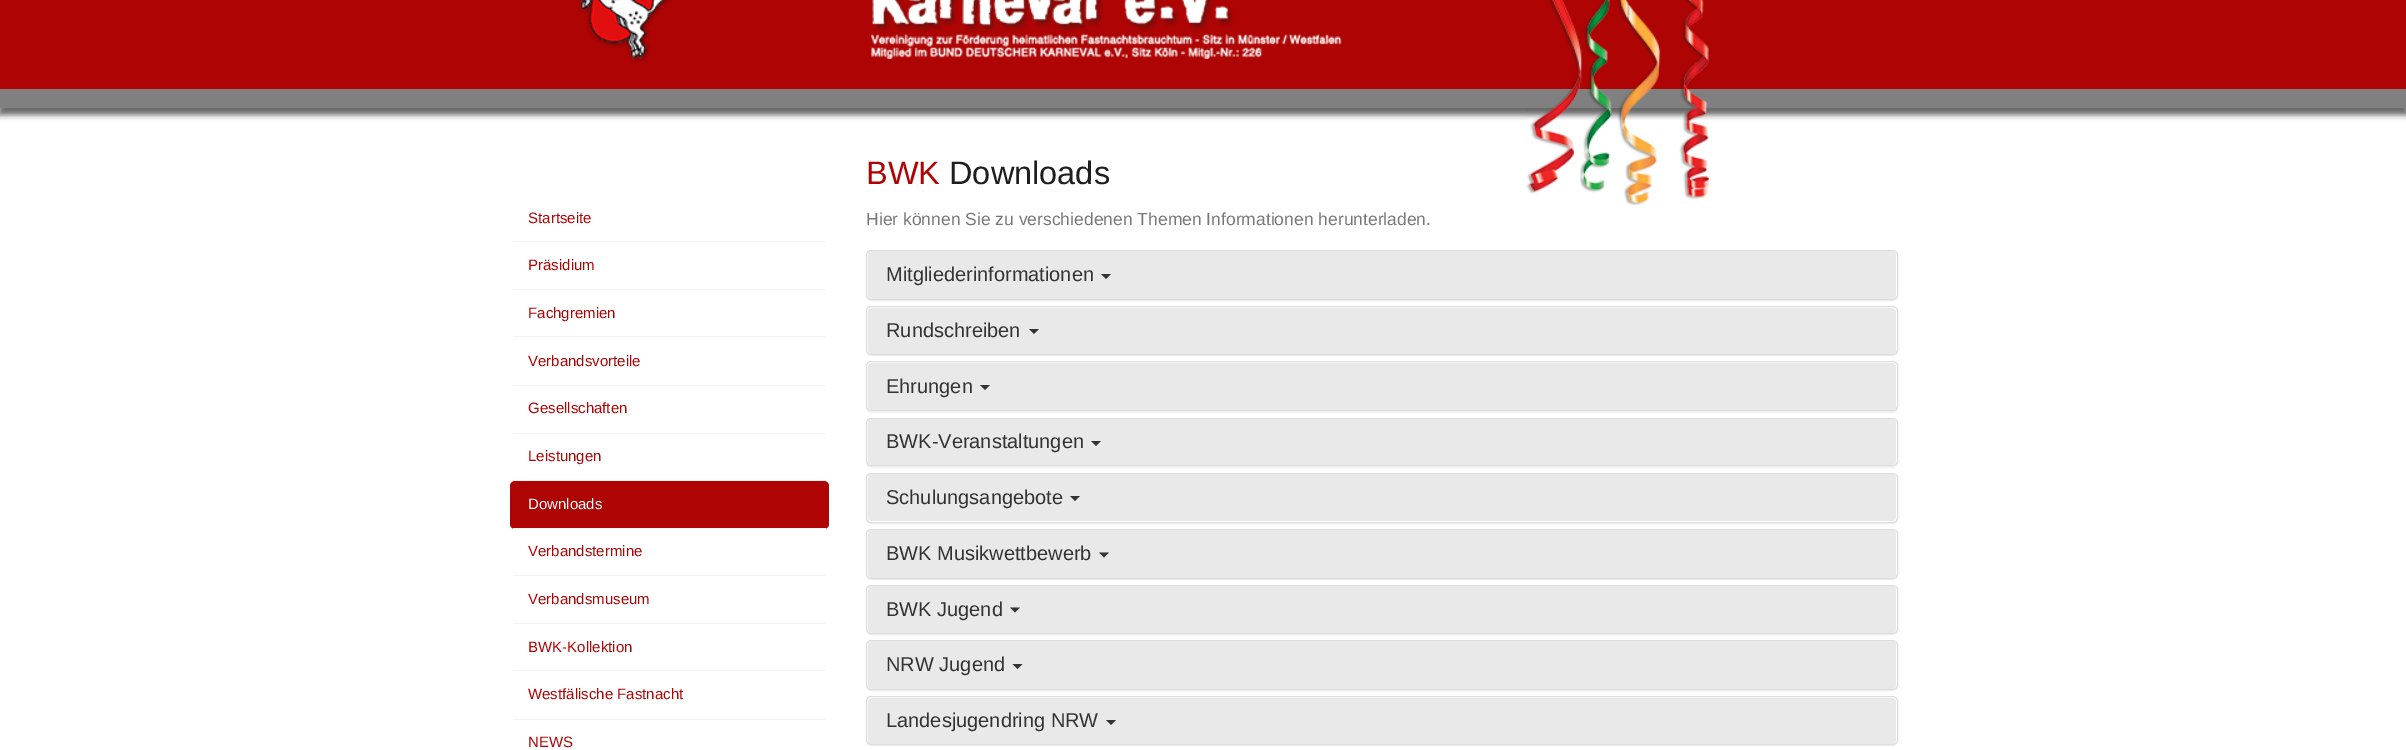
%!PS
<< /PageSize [2406 750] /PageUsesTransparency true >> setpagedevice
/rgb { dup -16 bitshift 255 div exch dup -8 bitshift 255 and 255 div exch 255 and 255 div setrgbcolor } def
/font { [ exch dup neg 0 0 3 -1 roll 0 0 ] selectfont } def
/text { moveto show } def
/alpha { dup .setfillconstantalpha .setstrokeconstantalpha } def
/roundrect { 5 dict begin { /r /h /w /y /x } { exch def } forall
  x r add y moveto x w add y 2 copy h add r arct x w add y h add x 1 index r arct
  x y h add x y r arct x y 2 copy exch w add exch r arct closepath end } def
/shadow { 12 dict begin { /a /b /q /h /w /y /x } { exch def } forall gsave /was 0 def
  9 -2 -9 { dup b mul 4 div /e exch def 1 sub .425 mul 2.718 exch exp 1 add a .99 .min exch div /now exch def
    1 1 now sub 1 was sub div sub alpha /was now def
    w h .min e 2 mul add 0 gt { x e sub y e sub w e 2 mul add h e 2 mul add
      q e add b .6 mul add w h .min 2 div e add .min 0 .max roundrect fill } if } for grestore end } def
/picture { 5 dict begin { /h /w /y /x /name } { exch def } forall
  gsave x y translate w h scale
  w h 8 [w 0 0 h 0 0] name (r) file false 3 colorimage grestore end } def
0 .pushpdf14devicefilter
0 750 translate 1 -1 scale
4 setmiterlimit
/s1 { /LiberationSans-Regular 15 font 16#AE0404 rgb } def
/s2 { /LiberationSans-Regular 15 font 16#FFFFFF rgb } def
/s3 { /LiberationSans-Regular 32.5 font 16#AE0404 rgb } def
/s4 { /LiberationSans-Regular 32.5 font 16#1E1E1E rgb } def
/s5 { /LiberationSans-Regular 17.5 font 16#787878 rgb } def
/s6 { /LiberationSans-Regular 20 font 16#333333 rgb } def
16#FFFFFF rgb
0 0 2406 750 rectfill
16#000000 rgb
-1 -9 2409 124 0 3 0.6 shadow
16#AE0404 rgb
0 0 2406 89 rectfill
(pic1.raw) 573 0 100 63 picture
(pic2.raw) 870 0 472 59 picture
16#808080 rgb
0 89 2406 19 rectfill
16#FFFFFF rgb
0 120 2406 1 rectfill
(pic3.raw) 1526 0 183 205 picture
16#F2F2F2 rgb
513 241 313 1 rectfill
s1
(Startseite) 528 223 text
16#F2F2F2 rgb
513 289 313 1 rectfill
s1
(Präsidium) 528 270 text
16#F2F2F2 rgb
513 336 313 1 rectfill
s1
(Fachgremien) 528 318 text
16#F2F2F2 rgb
513 385 313 1 rectfill
s1
(Verbandsvorteile) 528 366 text
16#F2F2F2 rgb
513 433 313 1 rectfill
s1
(Gesellschaften) 528 413 text
16#F2F2F2 rgb
513 480 313 1 rectfill
s1
(Leistungen) 528 461 text
510 481 319 48 5 roundrect fill
16#F2F2F2 rgb
513 528 313 1 rectfill
s2
(Downloads) 528 509 text
16#F2F2F2 rgb
513 575 313 1 rectfill
s1
(Verbandstermine) 528 556 text
16#F2F2F2 rgb
513 623 313 1 rectfill
s1
(Verbandsmuseum) 528 604 text
16#F2F2F2 rgb
513 670 313 1 rectfill
s1
(BWK-Kollektion) 528 652 text
16#F2F2F2 rgb
513 719 313 1 rectfill
s1
(Westfälische Fastnacht) 528 699 text
(NEWS) 528 747 text
s3
(BWK) 866 184 text
s4
(Downloads) 949 184 text
s5
(Hier können Sie zu verschiedenen Themen Informationen herunterladen.) 866 225 text
16#000000 rgb
866 251 1032 50 5 0.5 0.05 shadow
16#FFFFFF rgb
866.5 250.5 1031 49 4.5 roundrect gsave fill grestore
16#DDDDDD rgb
stroke
16#E9E9E9 rgb
868 251 1028 48 4 roundrect fill
s6
(Mitgliederinformationen) 886 281 text
1101 274 moveto 1111 274 lineto 1106 279 lineto closepath fill
16#000000 rgb
866 308 1032 48 5 0.5 0.05 shadow
16#FFFFFF rgb
866.5 306.5 1031 48 4.5 roundrect gsave fill grestore
16#DDDDDD rgb
stroke
16#E9E9E9 rgb
868 308 1028 46 4 roundrect fill
s6
(Rundschreiben) 886 337 text
1029 329 moveto 1039 329 lineto 1034 334 lineto closepath fill
16#000000 rgb
866 363 1032 50 5 0.5 0.05 shadow
16#FFFFFF rgb
866.5 361.5 1031 49 4.5 roundrect gsave fill grestore
16#DDDDDD rgb
stroke
16#E9E9E9 rgb
868 363 1028 47 4 roundrect fill
s6
(Ehrungen) 886 393 text
980 385 moveto 990 385 lineto 985 390 lineto closepath fill
16#000000 rgb
866 419 1032 49 5 0.5 0.05 shadow
16#FFFFFF rgb
866.5 418.5 1031 47 4.5 roundrect gsave fill grestore
16#DDDDDD rgb
stroke
16#E9E9E9 rgb
868 419 1028 46 4 roundrect fill
s6
(BWK-Veranstaltungen) 886 448 text
1091 441 moveto 1101 441 lineto 1096 446 lineto closepath fill
16#000000 rgb
866 474 1032 50 5 0.5 0.05 shadow
16#FFFFFF rgb
866.5 473.5 1031 49 4.5 roundrect gsave fill grestore
16#DDDDDD rgb
stroke
16#E9E9E9 rgb
868 474 1028 47 4 roundrect fill
s6
(Schulungsangebote) 886 504 text
1070 496 moveto 1080 496 lineto 1075 501 lineto closepath fill
16#000000 rgb
866 530 1032 50 5 0.5 0.05 shadow
16#FFFFFF rgb
866.5 529.5 1031 49 4.5 roundrect gsave fill grestore
16#DDDDDD rgb
stroke
16#E9E9E9 rgb
868 530 1028 48 4 roundrect fill
s6
(BWK Musikwettbewerb) 886 560 text
1099 552.5 moveto 1109 552.5 lineto 1104 557.5 lineto closepath fill
16#000000 rgb
866 586 1032 49 5 0.5 0.05 shadow
16#FFFFFF rgb
866.5 585.5 1031 48 4.5 roundrect gsave fill grestore
16#DDDDDD rgb
stroke
16#E9E9E9 rgb
868 586 1028 47 4 roundrect fill
s6
(BWK Jugend) 886 616 text
1010 607.5 moveto 1020 607.5 lineto 1015 612.5 lineto closepath fill
16#000000 rgb
866 641 1032 50 5 0.5 0.05 shadow
16#FFFFFF rgb
866.5 640.5 1031 49 4.5 roundrect gsave fill grestore
16#DDDDDD rgb
stroke
16#E9E9E9 rgb
868 641 1028 48 4 roundrect fill
s6
(NRW Jugend) 886 671 text
1012.5 664 moveto 1022.5 664 lineto 1017.5 669 lineto closepath fill
16#000000 rgb
866 698 1032 48 5 0.5 0.05 shadow
16#FFFFFF rgb
866.5 696.5 1031 48 4.5 roundrect gsave fill grestore
16#DDDDDD rgb
stroke
16#E9E9E9 rgb
868 698 1028 46 4 roundrect fill
s6
(Landesjugendring NRW) 886 727 text
1106 720 moveto 1116 720 lineto 1111 725 lineto closepath fill
.poppdf14devicefilter showpage
